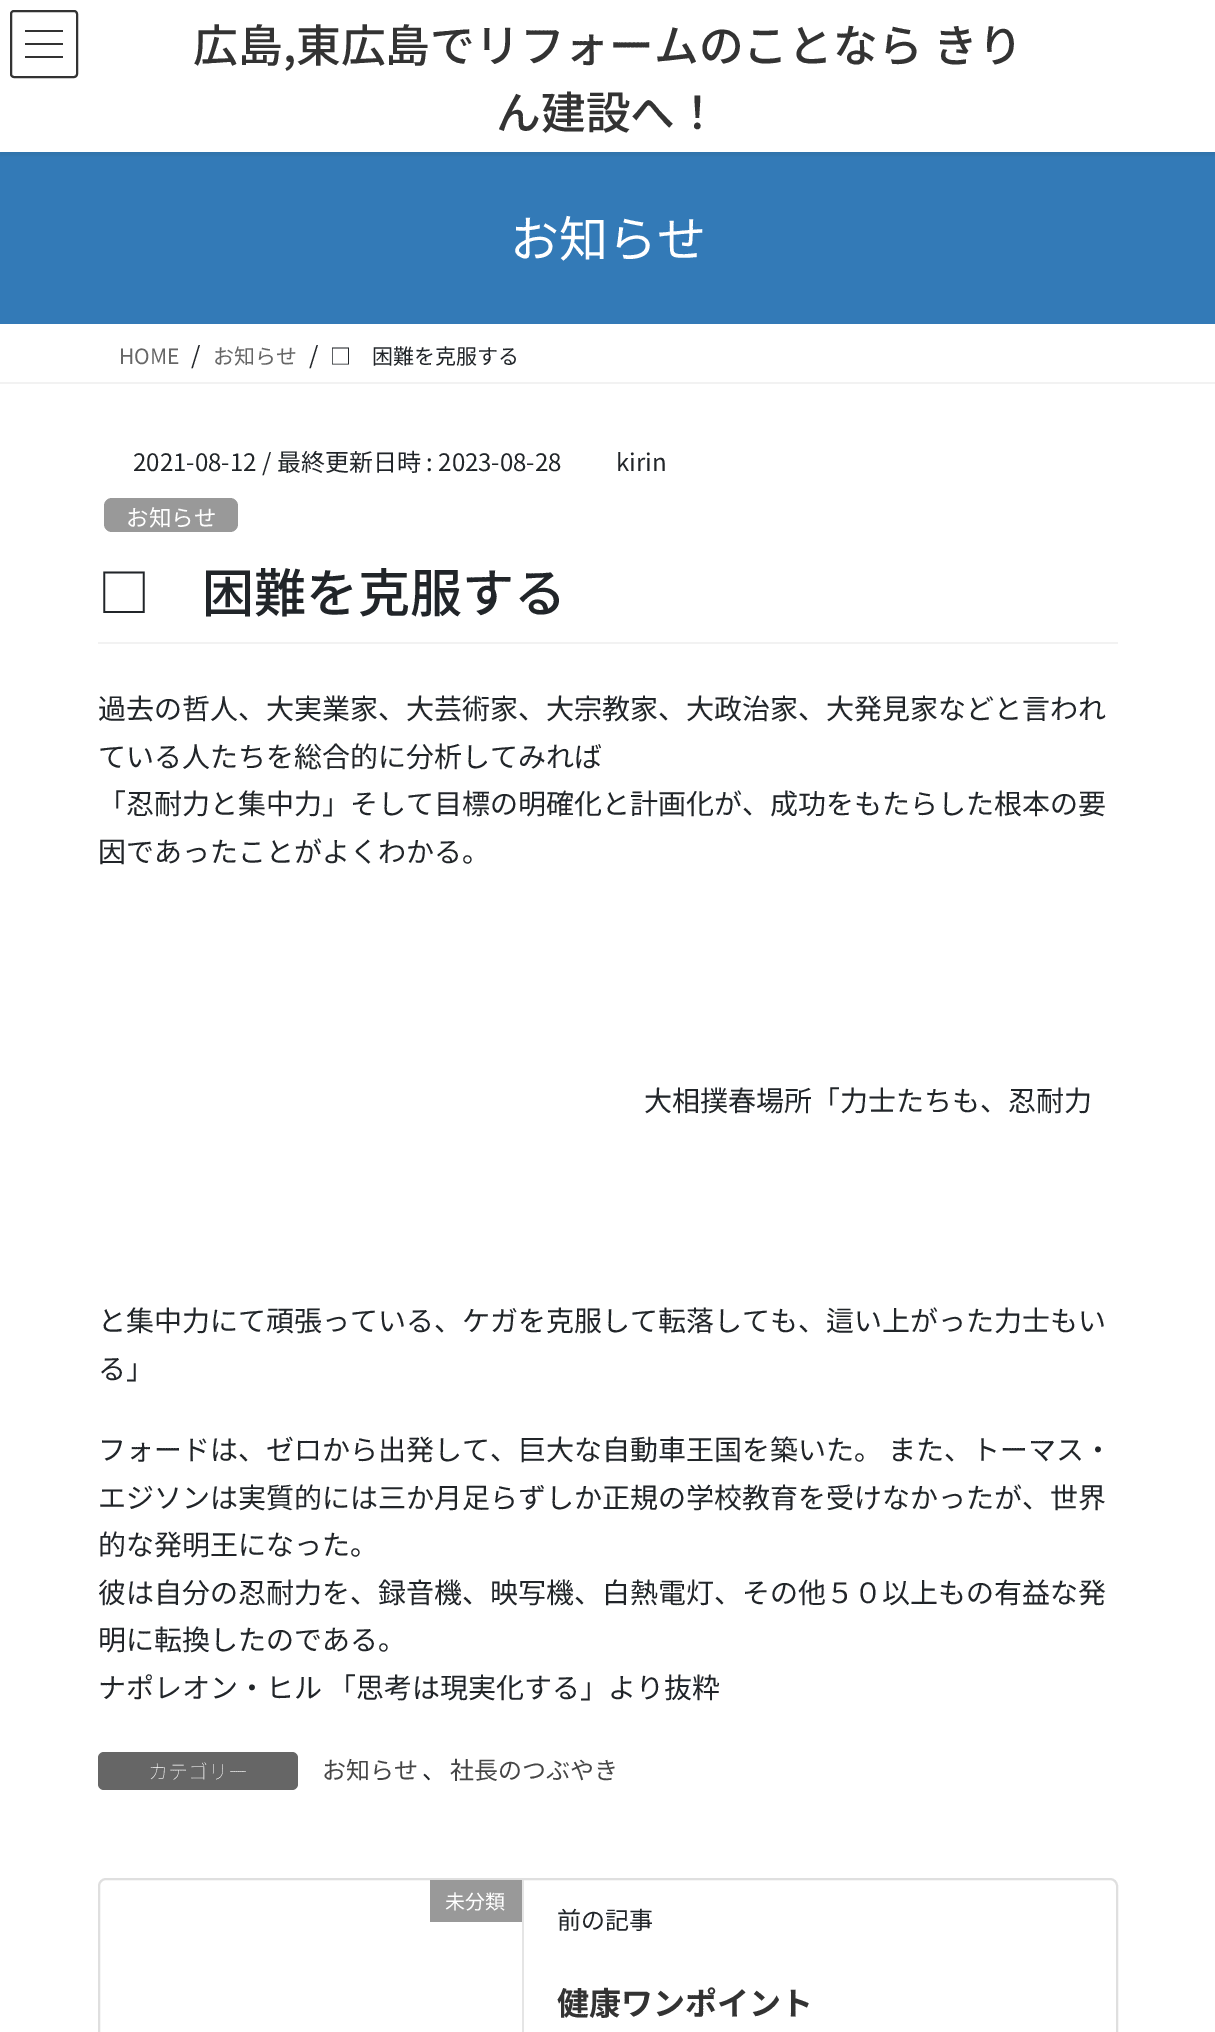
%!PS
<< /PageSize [1215 2032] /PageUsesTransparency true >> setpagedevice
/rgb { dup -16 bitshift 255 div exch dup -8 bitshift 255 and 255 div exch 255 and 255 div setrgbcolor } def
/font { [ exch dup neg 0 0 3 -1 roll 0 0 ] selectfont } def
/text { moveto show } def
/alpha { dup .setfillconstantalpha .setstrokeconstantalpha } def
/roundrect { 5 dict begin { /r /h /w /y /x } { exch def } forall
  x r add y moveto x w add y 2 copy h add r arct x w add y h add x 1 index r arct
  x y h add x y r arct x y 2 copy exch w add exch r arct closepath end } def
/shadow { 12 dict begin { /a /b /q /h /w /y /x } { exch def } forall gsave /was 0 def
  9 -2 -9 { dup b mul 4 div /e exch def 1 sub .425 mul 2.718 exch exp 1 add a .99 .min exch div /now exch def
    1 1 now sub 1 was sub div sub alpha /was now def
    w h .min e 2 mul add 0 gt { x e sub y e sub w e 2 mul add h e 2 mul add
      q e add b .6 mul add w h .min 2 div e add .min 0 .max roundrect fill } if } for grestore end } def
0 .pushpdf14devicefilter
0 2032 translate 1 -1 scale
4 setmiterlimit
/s1 { /NotoSansJP-Medium 44.75 font 16#333333 rgb } def
/s2 { /NotoSansJP-Regular 49 font 16#FFFFFF rgb } def
/s3 { /NotoSansJP-Regular 21 font 16#666666 rgb } def
/s4 { /NotoSansJP-Regular 24 font 16#212529 rgb } def
/s5 { /NotoSansJP-Regular 21 font 16#212529 rgb } def
/s6 { /NotoSansJP-Regular 22.5 font 16#FFFFFF rgb } def
/s7 { /NotoSansJP-Medium 52 font 16#212529 rgb } def
/s8 { /NotoSansJP-Regular 28 font 16#212529 rgb } def
/s9 { /NotoSansJP-Thin 20 font 16#FFFFFF rgb } def
/s10 { /NotoSansJP-Regular 24 font 16#464646 rgb } def
/s11 { /NotoSansJP-Regular 20 font 16#FFFFFF rgb } def
/s12 { /NotoSansJP-Bold 32 font 16#333333 rgb } def
16#FFFFFF rgb
0 0 1215 2032 rectfill
16#337AB7 rgb
0 152 1215 172 rectfill
gsave
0 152 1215 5 rectclip
16#000000 rgb
0 2 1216 152 0 3 0.1 shadow
grestore
16#333333 rgb
25 30 38 2 rectfill
25 43 38 2 rectfill
25 56 38 2 rectfill
2 setlinewidth
11 11 66 66 3 roundrect stroke
s1
(広島,東広島でリフォームのことなら) 193 62 text
(きり) 933 62 text
(ん建設へ！) 496 129 text
s2
(お知らせ) 510 257 text
16#F2F2F2 rgb
0 382 1215 2 rectfill
s3
(HOME) 119 364 text
s4
(/) 191 364 text
s3
(お知らせ) 213 364 text
s4
(/) 309 364 text
s5
(□　困難を克服する) 330 364 text
16#F2F2F2 rgb
98 642 1020 2 rectfill
s4
(2021-08-12) 133 471 text
(/ 最終更新日時 : 2023-08-28) 262 471 text
(kirin) 616 471 text
16#999999 rgb
104 498 134 34 8 roundrect fill
s6
(お知らせ) 126 526 text
s7
(□　困難を克服する) 98 612 text
s8
(過去の哲人、大実業家、大芸術家、大宗教家、大政治家、大発見家などと言われ) 98 719 text
(ている人たちを総合的に分析してみれば) 98 767 text
(「忍耐力と集中力」そして目標の明確化と計画化が、成功をもたらした根本の要) 98 814 text
(因であったことがよくわかる。) 98 862 text
(大相撲春場所「力士たちも、忍耐力) 644 1111 text
(と集中力にて頑張っている、ケガを克服して転落しても、這い上がった力士もい) 98 1331 text
(る」) 98 1379 text
(フォードは、ゼロから出発して、巨大な自動車王国を築いた。 また、トーマス・) 98 1460 text
(エジソンは実質的には三か月足らずしか正規の学校教育を受けなかったが、世界) 98 1508 text
(的な発明王になった。) 98 1555 text
(彼は自分の忍耐力を、録音機、映写機、白熱電灯、その他５０以上もの有益な発) 98 1603 text
(明に転換したのである。) 98 1650 text
(ナポレオン・ヒル 「思考は現実化する」より抜粋) 98 1698 text
16#666666 rgb
98 1752 200 38 6 roundrect fill
s9
(カテゴリー) 148 1779 text
s10
(お知らせ) 322 1779 text
s4
(、) 422 1779 text
s10
(社長のつぶやき) 450 1779 text
16#DFDFDF rgb
99 1879 1018 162 7 roundrect stroke
16#E5E5E5 rgb
522 1880 2 152 rectfill
16#999999 rgb
430 1880 92 42 rectfill
s11
(未分類) 445 1909 text
s4
(前の記事) 557 1929 text
s12
(健康ワンポイント) 557 2015 text
.poppdf14devicefilter showpage
